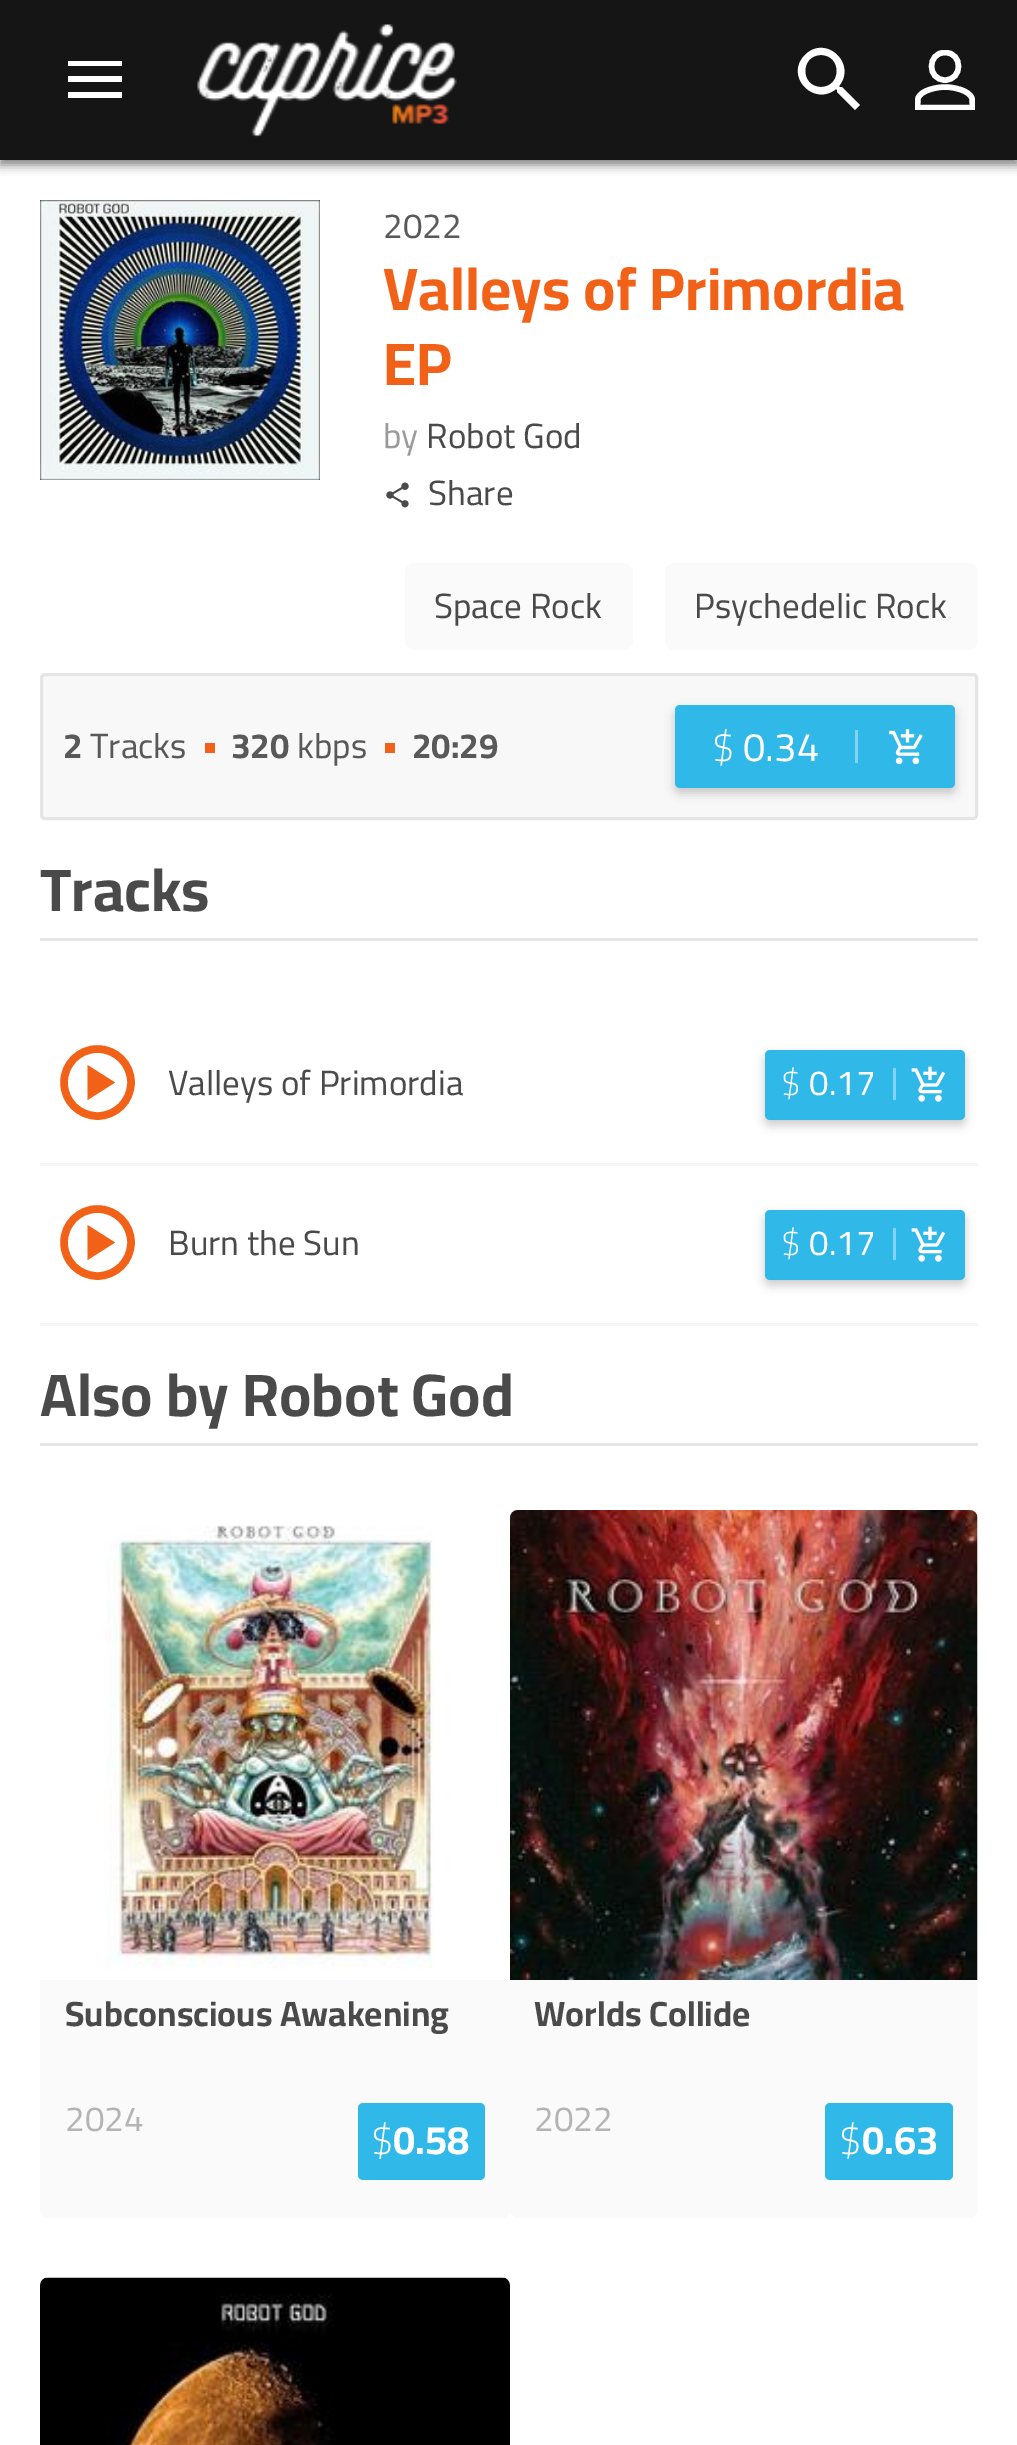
%!PS
<< /PageSize [1017 2445] /PageUsesTransparency true >> setpagedevice
/rgb { dup -16 bitshift 255 div exch dup -8 bitshift 255 and 255 div exch 255 and 255 div setrgbcolor } def
/font { [ exch dup neg 0 0 3 -1 roll 0 0 ] selectfont } def
/text { moveto show } def
/alpha { dup .setfillconstantalpha .setstrokeconstantalpha } def
/roundrect { 5 dict begin { /r /h /w /y /x } { exch def } forall
  x r add y moveto x w add y 2 copy h add r arct x w add y h add x 1 index r arct
  x y h add x y r arct x y 2 copy exch w add exch r arct closepath end } def
/shadow { 12 dict begin { /a /b /q /h /w /y /x } { exch def } forall gsave /was 0 def
  9 -2 -9 { dup b mul 4 div /e exch def 1 sub .425 mul 2.718 exch exp 1 add a .99 .min exch div /now exch def
    1 1 now sub 1 was sub div sub alpha /was now def
    w h .min e 2 mul add 0 gt { x e sub y e sub w e 2 mul add h e 2 mul add
      q e add b .6 mul add w h .min 2 div e add .min 0 .max roundrect fill } if } for grestore end } def
/picture { 5 dict begin { /h /w /y /x /name } { exch def } forall
  gsave x y translate w h scale
  w h 8 [w 0 0 h 0 0] name (r) file false 3 colorimage grestore end } def
0 .pushpdf14devicefilter
0 2445 translate 1 -1 scale
4 setmiterlimit
/s1 { /Cairo-Regular 35 font 16#595959 rgb } def
/s2 { /Cairo-Bold 60 font 16#F26118 rgb } def
/s3 { /Cairo-Regular 35 font 16#9B9B9B rgb } def
/s4 { /Cairo-Regular 35 font 16#4A4A4A rgb } def
/s5 { /Cairo-Bold 35 font 16#595959 rgb } def
/s6 { /Cairo-Light 40 font 16#FFFFFF rgb } def
/s7 { /Cairo-Regular 40 font 16#FFFFFF rgb } def
/s8 { /Cairo-Bold 60 font 16#4A4A4A rgb } def
/s9 { /Cairo-Light 35 font 16#FFFFFF rgb } def
/s10 { /Cairo-Regular 35 font 16#FFFFFF rgb } def
/s11 { /Cairo-Bold 35 font 16#4A4A4A rgb } def
/s12 { /Cairo-Regular 35 font 16#B4B4B4 rgb } def
/s13 { /Cairo-Bold 40 font 16#FFFFFF rgb } def
16#FFFFFF rgb
0 0 1017 2445 rectfill
16#000000 rgb
0 5 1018 160 0 5 0.5 shadow
16#161515 rgb
0 0 1017 160 rectfill
16#FFFFFF rgb
68 98 moveto 122 98 lineto 122 92 lineto 68 92 lineto closepath 68 82 moveto 122 82 lineto 122 76 lineto 68 76 lineto closepath 68 61 moveto 68 66 lineto 122 66 lineto 122 61 lineto closepath fill
(pic1.raw) 197 24 260 114 picture
842 87 moveto 840 87 lineto 839 86 lineto 857 64 826 34 805 55 curveto 784 76 814 107 836 89 curveto 837 90 lineto 837 92 lineto 855 110 lineto 860 105 lineto closepath 821 87 moveto 800 87 800 55 821 55 curveto 842 55 842 87 821 87 curveto closepath fill
gsave
915 50 60 60 rectclip
5.5 setlinewidth
945 87 moveto 952.5 87 969.5 90 972 98.5 curveto 972.5 107.5 lineto 917.5 107.5 lineto 918 98.5 lineto 920.5 90 937.5 87 945 87 curveto closepath 945 80 moveto 927 80 927 52.5 945 52.5 curveto 963 52.5 963 80 945 80 curveto closepath stroke
grestore
(pic2.raw) 40 200 280 280 picture
s1
(2022) 383 238 text
s2
(Valleys of Primordia) 383 310 text
(EP) 383 385 text
s3
(by) 383 448 text
s4
(Robot God) 426 448 text
(pic3.raw) 386 482 23 26 picture
(Share) 428 505 text
16#FAFAFA rgb
405 563 228 87 10 roundrect fill
s4
(Space Rock) 434 618 text
16#FAFAFA rgb
665 563 313 87 10 roundrect fill
s4
(Psychedelic Rock) 694 618 text
16#F8F8F8 rgb
40 673 938 147 5 roundrect fill
0.2 alpha
16#979797 rgb
3 setlinewidth
41.5 674.5 935 144 3.5 roundrect stroke
1 alpha
s5
(2) 63 758 text
s1
(Tracks) 90 758 text
16#F26118 rgb
205 743 10 10 rectfill
s5
(320) 231 758 text
s1
(kbps) 297 758 text
16#F26118 rgb
385 743 10 10 rectfill
s5
(20:29) 412 758 text
16#000000 rgb
675 710 280 83 5 5 0.2 shadow
16#30B8E9 rgb
675 705 280 83 5 roundrect fill
s6
($) 712 761 text
s7
(0.34) 743 761 text
16#83D4F2 rgb
855 730 3 33 rectfill
(pic4.raw) 889 729 34 36 picture
16#E6E6E6 rgb
40 938 938 3 rectfill
s8
(Tracks) 40 911 text
16#F5F5F5 rgb
40 1163 938 3 rectfill
gsave
60 1045 75 75 37.5 roundrect clip newpath
16#F2F2F2 rgb
7.5 setlinewidth
1 setlinecap
[212.06 212.06] 0 setdash
97.5 1049 moveto 116 1049 131 1064 131 1082.5 curveto 131 1101 116 1116 97.5 1116 curveto 79 1116 64 1101 64 1082.5 curveto 64 1064 79 1049 97.5 1049 curveto stroke
16#F26118 rgb
97.5 1049 moveto 116 1049 131 1064 131 1082.5 curveto 131 1101 116 1116 97.5 1116 curveto 79 1116 64 1101 64 1082.5 curveto 64 1064 79 1049 97.5 1049 curveto stroke
grestore
16#F26118 rgb
87.5 1065 moveto 87.5 1100 lineto 115 1082.5 lineto closepath fill
s4
(Valleys of Primordia) 168 1095 text
16#000000 rgb
765 1055 200 70 5 5 0.2 shadow
16#30B8E9 rgb
765 1050 200 70 5 roundrect fill
s9
($) 781 1095 text
s10
(0.17) 809 1095 text
16#83D4F2 rgb
893 1068 3 32 rectfill
(pic5.raw) 911 1066 35 36 picture
16#F5F5F5 rgb
40 1323 938 3 rectfill
gsave
60 1205 75 75 37.5 roundrect clip newpath
16#F2F2F2 rgb
7.5 setlinewidth
1 setlinecap
[212.06 212.06] 0 setdash
97.5 1209 moveto 116 1209 131 1224 131 1242.5 curveto 131 1261 116 1276 97.5 1276 curveto 79 1276 64 1261 64 1242.5 curveto 64 1224 79 1209 97.5 1209 curveto stroke
16#F26118 rgb
97.5 1209 moveto 116 1209 131 1224 131 1242.5 curveto 131 1261 116 1276 97.5 1276 curveto 79 1276 64 1261 64 1242.5 curveto 64 1224 79 1209 97.5 1209 curveto stroke
grestore
16#F26118 rgb
87.5 1225 moveto 87.5 1260 lineto 115 1242.5 lineto closepath fill
s4
(Burn the Sun) 168 1255 text
16#000000 rgb
765 1215 200 70 5 5 0.2 shadow
16#30B8E9 rgb
765 1210 200 70 5 roundrect fill
s9
($) 781 1255 text
s10
(0.17) 809 1255 text
16#83D4F2 rgb
893 1228 3 32 rectfill
(pic5.raw) 911 1226 35 36 picture
16#E6E6E6 rgb
40 1443 938 3 rectfill
s8
(Also by Robot God) 40 1416 text
16#FAFAFA rgb
40 1510 470 708 8 roundrect fill
(pic6.raw) 40 1510 470 470 picture
s11
(Subconscious Awakening) 65 2026 text
s12
(2024) 65 2131 text
16#30B8E9 rgb
358 2103 127 77 5 roundrect fill
s6
($) 371 2154 text
s13
(0.58) 393 2154 text
16#FAFAFA rgb
510 1510 468 708 8 roundrect fill
(pic7.raw) 510 1510 468 470 picture
s11
(Worlds Collide) 534 2026 text
s12
(2022) 534 2131 text
16#30B8E9 rgb
825 2103 128 77 5 roundrect fill
s6
($) 839 2154 text
s13
(0.63) 862 2154 text
(pic8.raw) 40 2277 470 168 picture
.poppdf14devicefilter showpage
